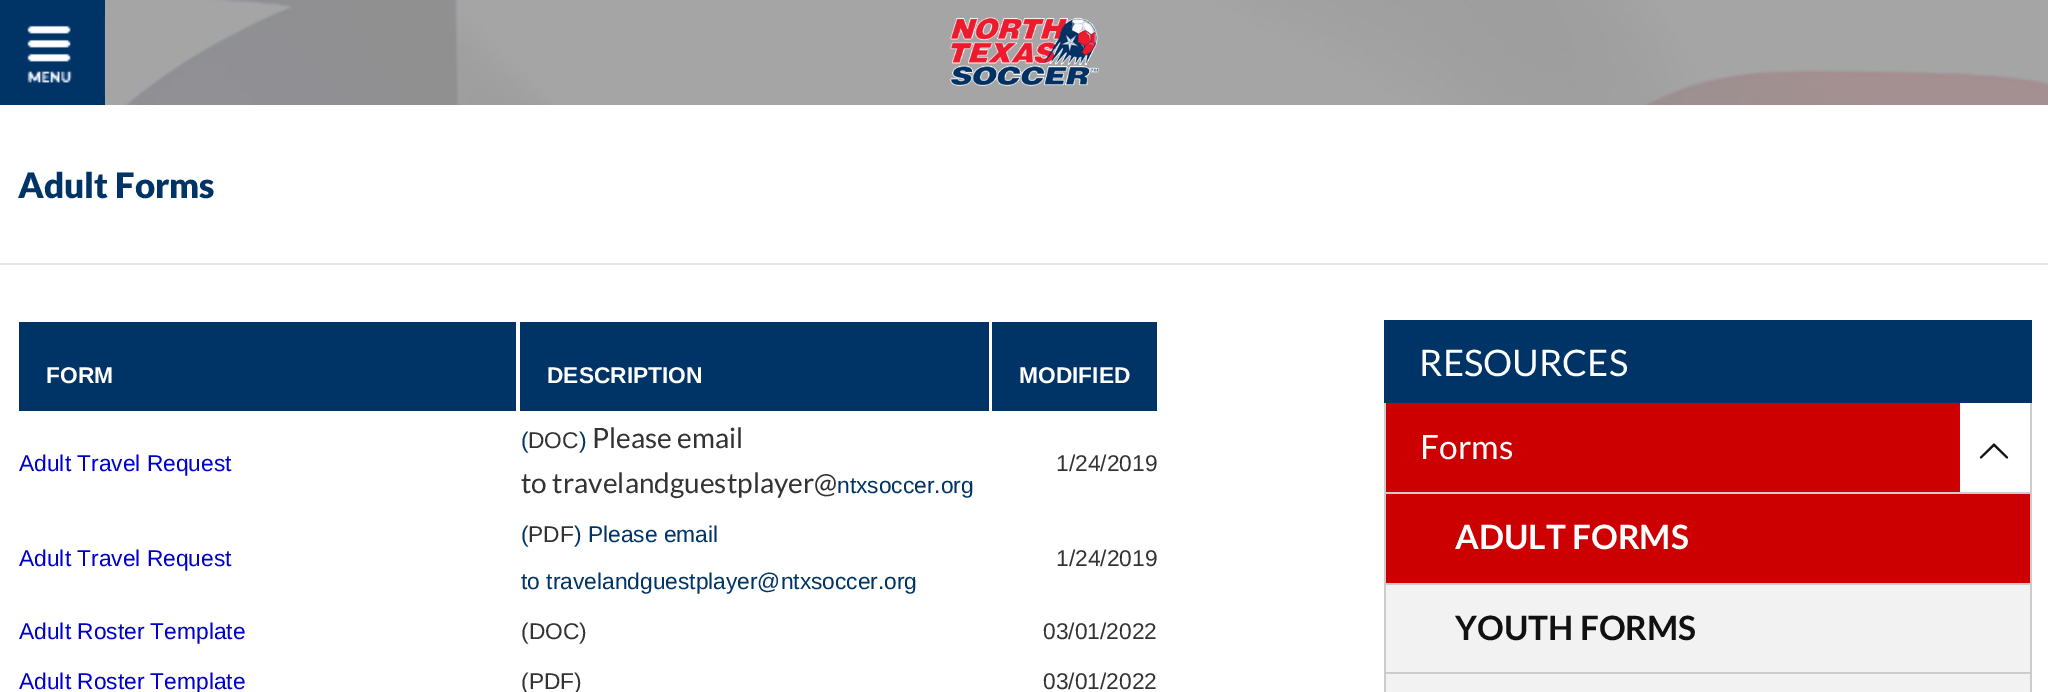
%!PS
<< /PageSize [2048 692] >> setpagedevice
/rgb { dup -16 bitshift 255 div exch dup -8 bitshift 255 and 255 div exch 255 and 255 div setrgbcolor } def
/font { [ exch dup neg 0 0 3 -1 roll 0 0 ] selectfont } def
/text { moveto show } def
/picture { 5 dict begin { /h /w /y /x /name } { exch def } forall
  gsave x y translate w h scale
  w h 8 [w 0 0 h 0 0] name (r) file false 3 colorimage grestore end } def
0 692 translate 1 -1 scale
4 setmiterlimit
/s1 { /Lato-Black 35 font 16#003366 rgb } def
/s2 { /LiberationSans-Bold 22.75 font 16#FFFFFF rgb } def
/s3 { /LiberationSans-Regular 22.75 font 16#0000CD rgb } def
/s4 { /LiberationSans-Regular 22.75 font 16#003366 rgb } def
/s5 { /LiberationSans-Regular 22.75 font 16#333333 rgb } def
/s6 { /Lato-Regular 28 font 16#333333 rgb } def
/s7 { /Lato-Regular 36.5 font 16#FFFFFF rgb } def
/s8 { /Lato-Regular 33.5 font 16#FFFFFF rgb } def
/s9 { /Lato-Bold 33.5 font 16#FFFFFF rgb } def
/s10 { /Lato-Bold 33.5 font 16#111111 rgb } def
16#FFFFFF rgb
0 0 2048 692 rectfill
16#003366 rgb
0 0 105 105 rectfill
(pic1.raw) 27 16 78 89 picture
(pic2.raw) 105 0 1943 105 picture
(pic3.raw) 950 17 149 69 picture
16#E5E5E5 rgb
0 263 2048 2 rectfill
s1
(Adult Forms) 18 198 text
19 322 497 89 rectfill
s2
(FORM) 46 383 text
16#003366 rgb
520 322 469 89 rectfill
s2
(DESCRIPTION) 547 383 text
16#003366 rgb
992 322 165 89 rectfill
s2
(MODIFIED) 1019 383 text
s3
(Adult Travel Request) 19 471 text
s4
(\() 521 448 text
s5
(DOC) 528 448 text
s4
(\)) 579 448 text
s6
(Please email) 592 448 text
(to travelandguestplayer@) 521 493 text
s4
(ntxsoccer.org) 837 493 text
s5
(1/24/2019) 1056 471 text
s3
(Adult Travel Request) 19 566 text
s4
(\() 521 542 text
s5
(PDF) 528 542 text
s4
(\) Please email) 574 542 text
(to travelandguestplayer@ntxsoccer.org) 521 589 text
s5
(1/24/2019) 1056 566 text
s3
(Adult Roster Template) 19 639 text
s5
(\(DOC\)) 521 639 text
(03/01/2022) 1043 639 text
s3
(Adult Roster Template) 19 689 text
s5
(\(PDF\)) 521 689 text
(03/01/2022) 1043 689 text
16#003366 rgb
1384 320 648 83 rectfill
s7
(RESOURCES) 1419 376 text
16#CCCCCC rgb
2030 403 2 289 rectfill
1384 403 2 289 rectfill
16#CC0000 rgb
1386 403 574 89 rectfill
16#CCCCCC rgb
1386 492 644 2 rectfill
s8
(Forms) 1420 459 text
(pic4.raw) 1979 443 30 16 picture
16#F2F2F2 rgb
1386 585 644 107 rectfill
16#CC0000 rgb
1386 494 644 89 rectfill
s9
(ADULT FORMS) 1455 549 text
16#CCCCCC rgb
1386 583 644 2 rectfill
s10
(YOUTH FORMS) 1455 640 text
16#CCCCCC rgb
1386 672 644 2 rectfill
showpage
